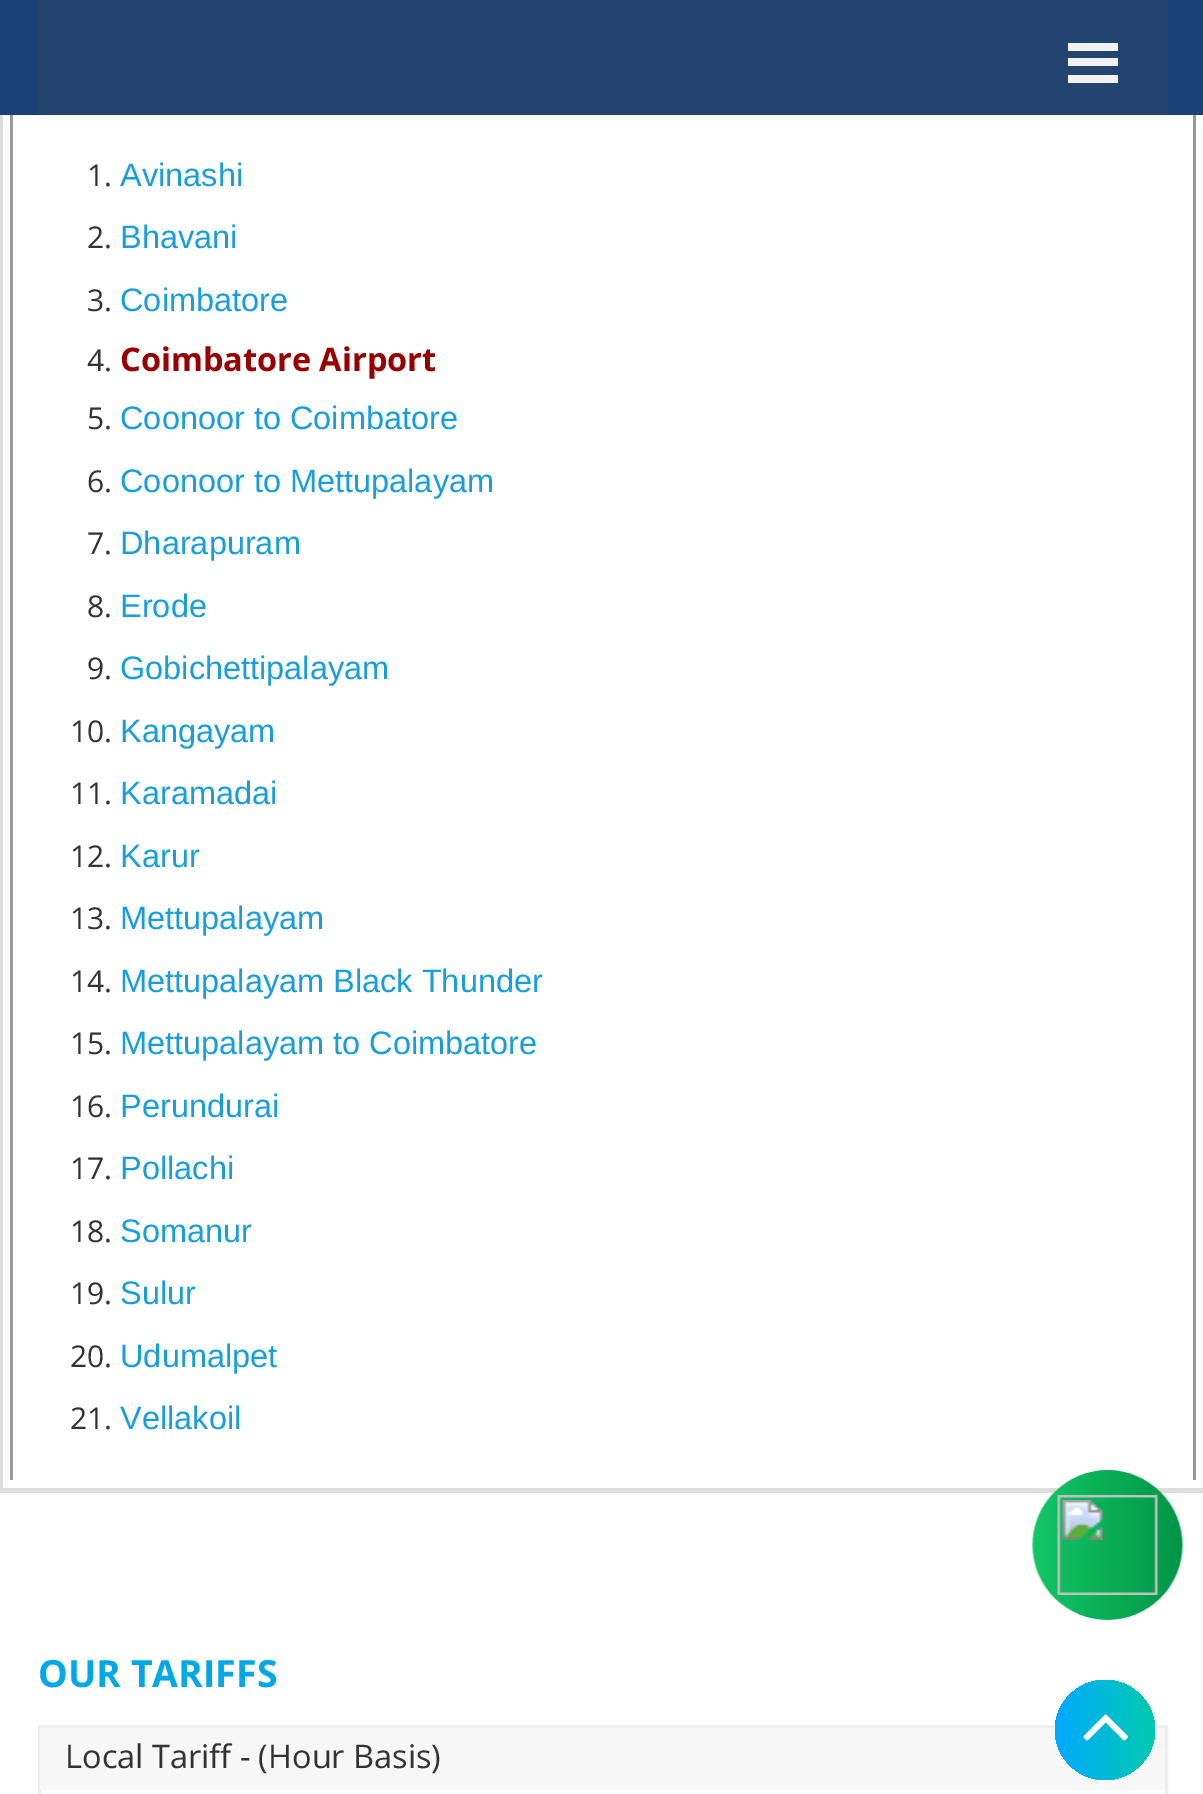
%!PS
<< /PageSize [1203 1794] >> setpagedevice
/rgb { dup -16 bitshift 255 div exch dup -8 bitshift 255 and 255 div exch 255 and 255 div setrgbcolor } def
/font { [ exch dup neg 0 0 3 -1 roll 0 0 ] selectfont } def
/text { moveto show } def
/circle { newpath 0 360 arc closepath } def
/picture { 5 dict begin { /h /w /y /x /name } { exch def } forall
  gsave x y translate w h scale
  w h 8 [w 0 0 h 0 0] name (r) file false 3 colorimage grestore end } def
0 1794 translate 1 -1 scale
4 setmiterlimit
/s1 { /OpenSans-Regular 30 font 16#333333 rgb } def
/s2 { /LiberationSans-Regular 32.5 font 16#179EDF rgb } def
/s3 { /OpenSans-Bold 32.5 font 16#990000 rgb } def
/s4 { /OpenSans-Bold 37.5 font 16#00A8E6 rgb } def
/s5 { /OpenSans-Regular 32.5 font 16#333333 rgb } def
16#FFFFFF rgb
0 0 1203 1794 rectfill
16#184175 rgb
0 0 1203 115 rectfill
16#23446F rgb
38 0 1130 115 rectfill
16#F1F1F1 rgb
1068 43 50 8 rectfill
1068 58 50 8 rectfill
1068 75 50 8 rectfill
16#DDDDDD rgb
0 1488 1203 5 rectfill
0 115 3 1378 rectfill
16#999999 rgb
1193 115 3 1365 rectfill
10 115 3 1365 rectfill
s1
(1.) 87 186 text
s2
(Avinashi) 120 186 text
s1
(2.) 87 248 text
s2
(Bhavani) 120 248 text
s1
(3.) 87 311 text
s2
(Coimbatore) 120 311 text
s1
(4.) 87 371 text
s3
(Coimbatore Airport) 120 371 text
s1
(5.) 87 429 text
s2
(Coonoor to Coimbatore) 120 429 text
s1
(6.) 87 492 text
s2
(Coonoor to Mettupalayam) 120 492 text
s1
(7.) 87 554 text
s2
(Dharapuram) 120 554 text
s1
(8.) 87 617 text
s2
(Erode) 120 617 text
s1
(9.) 87 679 text
s2
(Gobichettipalayam) 120 679 text
s1
(10.) 70 742 text
s2
(Kangayam) 120 742 text
s1
(11.) 70 804 text
s2
(Karamadai) 120 804 text
s1
(12.) 70 867 text
s2
(Karur) 120 867 text
s1
(13.) 70 929 text
s2
(Mettupalayam) 120 929 text
s1
(14.) 70 992 text
s2
(Mettupalayam Black Thunder) 120 992 text
s1
(15.) 70 1054 text
s2
(Mettupalayam to Coimbatore) 120 1054 text
s1
(16.) 70 1117 text
s2
(Perundurai) 120 1117 text
s1
(17.) 70 1179 text
s2
(Pollachi) 120 1179 text
s1
(18.) 70 1242 text
s2
(Somanur) 120 1242 text
s1
(19.) 70 1304 text
s2
(Sulur) 120 1304 text
s1
(20.) 70 1367 text
s2
(Udumalpet) 120 1367 text
s1
(21.) 70 1429 text
s2
(Vellakoil) 120 1429 text
s4
(OUR TARIFFS) 38 1687 text
16#EEEEEE rgb
3 setlinewidth
39.5 1726.5 1127 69 rectstroke
16#F7F7F7 rgb
40 1728 1125 62 rectfill
s5
(Local Tariff - \(Hour Basis\)) 65 1768 text
(pic1.raw) 1032 1470 151 150 picture
gsave 1105 1730 50 circle clip newpath
<< /ShadingType 2 /ColorSpace /DeviceRGB /Coords [1055 1730 1155 1730] /Extend [true true] /Function << /FunctionType 2 /Domain [0 1] /C0 [0 0.663 1] /C1 [0 0.792 0.678] /N 1 >> >> shfill grestore
(pic2.raw) 1083 1714 45 27 picture
showpage
